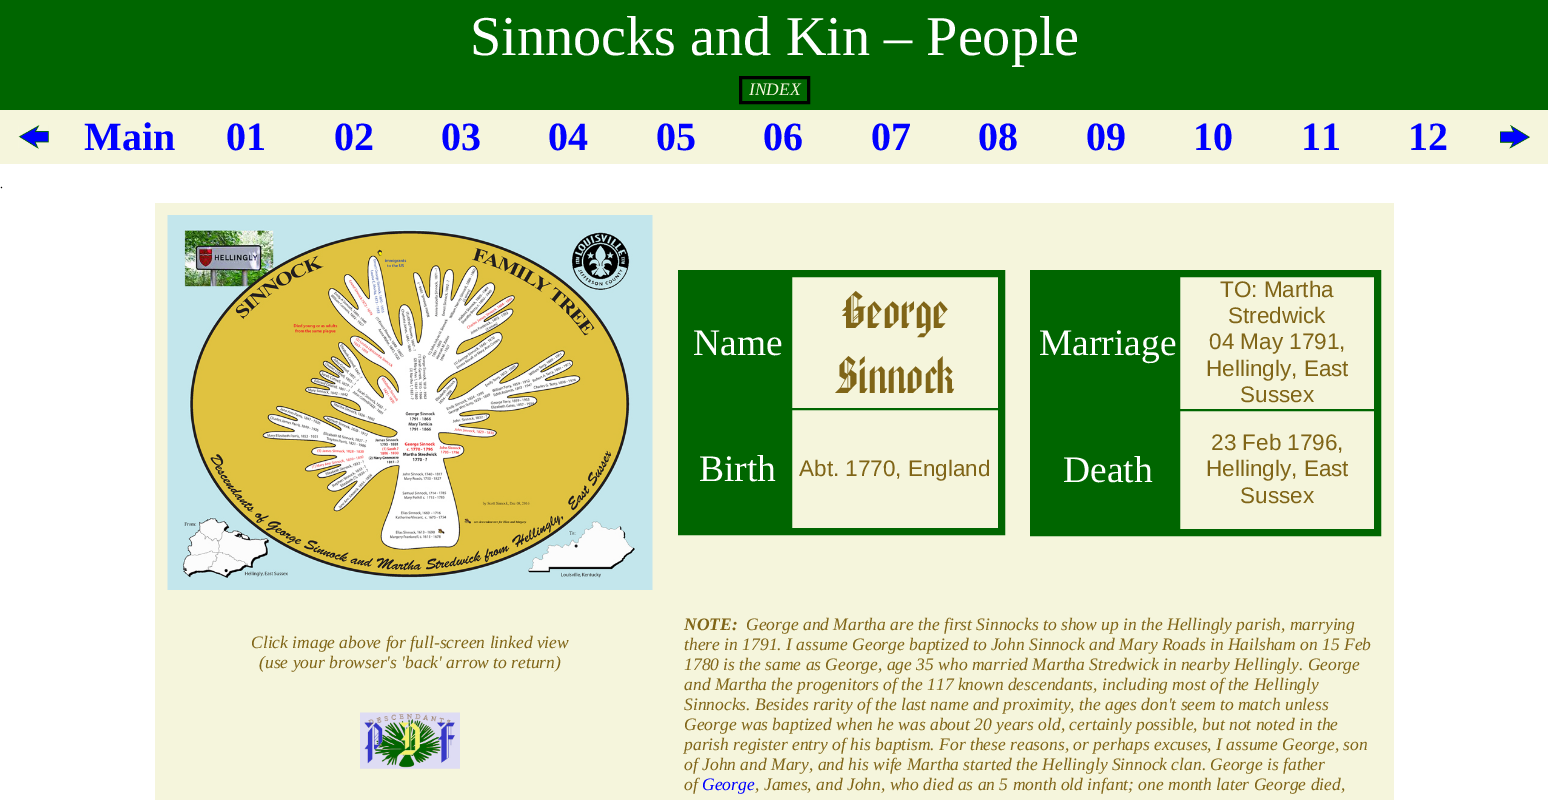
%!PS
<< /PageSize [1548 800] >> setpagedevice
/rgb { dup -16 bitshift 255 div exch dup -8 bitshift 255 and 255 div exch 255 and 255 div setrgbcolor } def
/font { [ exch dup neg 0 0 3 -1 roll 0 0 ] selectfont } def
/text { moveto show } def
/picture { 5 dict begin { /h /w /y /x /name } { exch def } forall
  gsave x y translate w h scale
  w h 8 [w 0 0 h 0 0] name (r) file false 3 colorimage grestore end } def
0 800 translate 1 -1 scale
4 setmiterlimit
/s1 { /LiberationSerif-Regular 56.25 font 16#FFFFFF rgb } def
/s2 { /LiberationSerif-Italic 17.5 font 16#F5F5DC rgb } def
/s3 { /LiberationSerif-Bold 40 font 16#0000FF rgb } def
/s4 { /LiberationSerif-Regular 12 font 16#000000 rgb } def
/s5 { /LiberationSerif-Regular 37.5 font 16#FFFFFF rgb } def
/s6 { /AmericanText-Regular 45 font 16#806517 rgb } def
/s7 { /LiberationSans-Regular 22.5 font 16#806517 rgb } def
/s8 { /LiberationSerif-Italic 17.5 font 16#806517 rgb } def
/s9 { /LiberationSerif-BoldItalic 17.5 font 16#806517 rgb } def
/s10 { /LiberationSerif-Italic 17.5 font 16#0000FF rgb } def
16#FFFFFF rgb
0 0 1548 800 rectfill
16#006600 rgb
0 0 1548 110 rectfill
s1
(Sinnocks and Kin – People) 470 55 text
16#000000 rgb
3 setlinewidth
740.5 77.5 68 25 rectstroke
s2
(INDEX) 749 95 text
0 110 1548 54 rectfill
(pic1.raw) 18 125 31 24 picture
s3
(Main) 84 150 text
(01) 226 150 text
(02) 334 150 text
(03) 441 150 text
(04) 548 150 text
(05) 656 150 text
(06) 763 150 text
(07) 871 150 text
(08) 978 150 text
(09) 1086 150 text
(10) 1193 150 text
(11) 1301 150 text
(12) 1408 150 text
(pic2.raw) 1500 125 30 24 picture
s4
(.) 0 188 text
16#F5F5DC rgb
155 203 1239 597 rectfill
(pic3.raw) 167 215 486 375 picture
16#006600 rgb
6 setlinewidth
681 273 321 259 rectstroke
684 276 107 253 rectfill
s5
(Name) 693 355 text
16#006600 rgb
1 setlinewidth
791.5 276.5 207 132 rectstroke
s6
(George) 841 328 text
(Sinnock) 834 393 text
s5
(Birth) 699 481 text
16#006600 rgb
791.5 409.5 207 119 rectstroke
s7
(Abt. 1770, England) 799 476 text
16#006600 rgb
6 setlinewidth
1033 273 345 260 rectstroke
1036 276 143 254 rectfill
s5
(Marriage) 1039 355 text
16#006600 rgb
1 setlinewidth
1179.5 276.5 195 133 rectstroke
s7
(TO: Martha) 1220 297 text
(Stredwick) 1228 323 text
(04 May 1791,) 1209 349 text
(Hellingly, East) 1206 376 text
(Sussex) 1240 402 text
s5
(Death) 1063 482 text
16#006600 rgb
1179.5 410.5 195 119 rectstroke
s7
(23 Feb 1796,) 1211 450 text
(Hellingly, East) 1206 476 text
(Sussex) 1240 503 text
s8
(Click image above for full-screen linked view) 251 648 text
(\(use your browser's 'back' arrow to return\)) 259 668 text
(pic4.raw) 360 712 100 57 picture
s9
(NOTE:) 684 630 text
s8
(George and Martha are the first Sinnocks to show up in the Hellingly parish, marrying) 746 630 text
(there in 1791. I assume George baptized to John Sinnock and Mary Roads in Hailsham on 15 Feb) 684 650 text
(1780 is the same as George, age 35 who married Martha Stredwick in nearby Hellingly. George) 684 670 text
(and Martha the progenitors of the 117 known descendants, including most of the Hellingly) 684 690 text
(Sinnocks. Besides rarity of the last name and proximity, the ages don't seem to match unless) 684 710 text
(George was baptized when he was about 20 years old, certainly possible, but not noted in the) 684 730 text
(parish register entry of his baptism. For these reasons, or perhaps excuses, I assume George, son) 684 750 text
(of John and Mary, and his wife Martha started the Hellingly Sinnock clan. George is father) 684 770 text
(of) 684 790 text
s10
(George) 702 790 text
s8
(, James, and John, who died as an 5 month old infant; one month later George died,) 755 790 text
showpage
